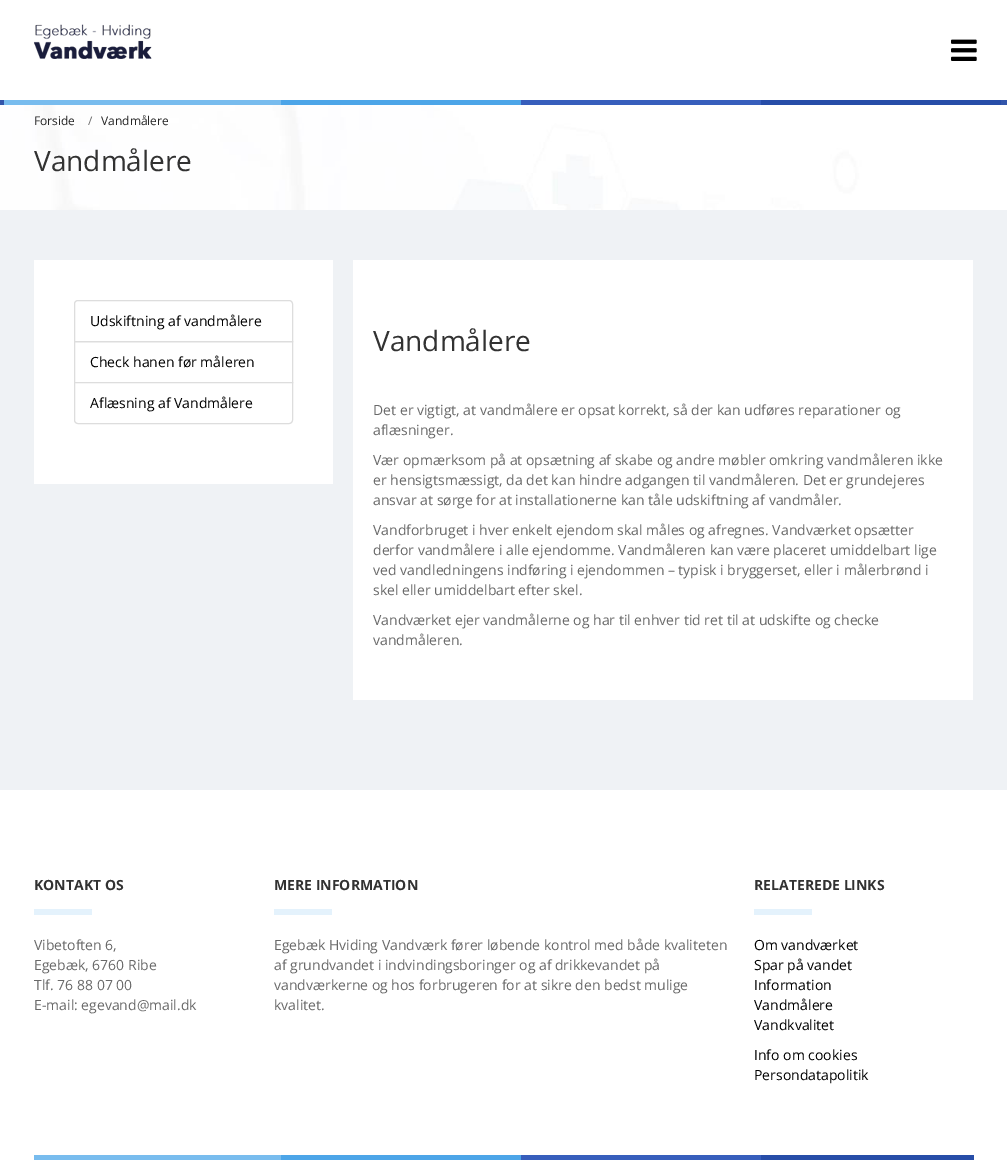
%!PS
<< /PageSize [1007 1171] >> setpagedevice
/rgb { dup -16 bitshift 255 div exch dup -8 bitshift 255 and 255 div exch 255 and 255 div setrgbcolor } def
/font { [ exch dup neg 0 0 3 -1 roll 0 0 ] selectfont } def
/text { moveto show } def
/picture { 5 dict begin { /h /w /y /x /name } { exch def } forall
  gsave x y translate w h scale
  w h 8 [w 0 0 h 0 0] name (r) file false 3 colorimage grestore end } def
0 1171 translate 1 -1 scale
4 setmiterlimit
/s1 { /OpenSans-Regular 12 font 16#262626 rgb } def
/s2 { /OpenSans-Regular 12 font 16#696969 rgb } def
/s3 { /OpenSans-Regular 28 font 16#323232 rgb } def
/s4 { /OpenSans-Regular 14 font 16#000000 rgb } def
/s5 { /OpenSans-Regular 14 font 16#696969 rgb } def
/s6 { /OpenSans-Bold 14 font 16#323232 rgb } def
16#EFF2F5 rgb
0 0 1007 1171 rectfill
16#FFFFFF rgb
0 0 1007 100 rectfill
16#3255AA rgb
0 100 1007 5 rectfill
(pic1.raw) 33 24 119 35 picture
(pic2.raw) 951 39 26 22 picture
(pic3.raw) 4 100 997 5 picture
(pic4.raw) 0 105 1007 105 picture
s1
(Forside) 34 125 text
s2
(/) 88 125 text
s1
(Vandmålere) 101 125 text
s3
(Vandmålere) 34 171 text
16#FFFFFF rgb
34 260 299 224 rectfill
16#DDDDDD rgb
78 300.5 moveto 289 300.5 lineto 291 300.5 292.5 302 292.5 304 curveto 292.5 341.5 lineto 74.5 341.5 lineto 74.5 304 lineto 74.5 302 76 300.5 78 300.5 curveto closepath stroke
s4
(Udskiftning af vandmålere) 90 326 text
16#DDDDDD rgb
74.5 341.5 218 41 rectstroke
s4
(Check hanen før måleren) 90 367 text
16#FFFFFF rgb
74.5 382.5 moveto 292.5 382.5 lineto 292.5 420 lineto 292.5 422 291 423.5 289 423.5 curveto 78 423.5 lineto 76 423.5 74.5 422 74.5 420 curveto closepath gsave fill grestore
16#DDDDDD rgb
stroke
s4
(Aflæsning af Vandmålere) 90 408 text
16#FFFFFF rgb
353 260 620 440 rectfill
s3
(Vandmålere) 373 351 text
s5
(Det er vigtigt, at vandmålere er opsat korrekt, så der kan udføres reparationer og) 373 415 text
(aflæsninger.) 373 435 text
(Vær opmærksom på at opsætning af skabe og andre møbler omkring vandmåleren ikke) 373 465 text
(er hensigtsmæssigt, da det kan hindre adgangen til vandmåleren. Det er grundejeres) 373 485 text
(ansvar at sørge for at installationerne kan tåle udskiftning af vandmåler.) 373 505 text
(Vandforbruget i hver enkelt ejendom skal måles og afregnes. Vandværket opsætter) 373 535 text
(derfor vandmålere i alle ejendomme. Vandmåleren kan være placeret umiddelbart lige) 373 555 text
(ved vandledningens indføring i ejendommen – typisk i bryggerset, eller i målerbrønd i) 373 575 text
(skel eller umiddelbart efter skel.) 373 595 text
(Vandværket ejer vandmålerne og har til enhver tid ret til at udskifte og checke) 373 625 text
(vandmåleren.) 373 645 text
16#FFFFFF rgb
0 790 1007 381 rectfill
s6
(KONTAKT OS) 34 890 text
16#E4F2FC rgb
34 909 58 6 rectfill
s5
(Vibetoften 6,) 34 950 text
(Egebæk, 6760 Ribe) 34 970 text
(Tlf. 76 88 07 00) 34 990 text
(E-mail: egevand@mail.dk) 34 1010 text
s6
(MERE INFORMATION) 274 890 text
16#E4F2FC rgb
274 909 58 6 rectfill
s5
(Egebæk Hviding Vandværk fører løbende kontrol med både kvaliteten) 274 950 text
(af grundvandet i indvindingsboringer og af drikkevandet på) 274 970 text
(vandværkerne og hos forbrugeren for at sikre den bedst mulige) 274 990 text
(kvalitet.) 274 1010 text
s6
(RELATEREDE LINKS) 754 890 text
16#E4F2FC rgb
754 909 58 6 rectfill
s4
(Om vandværket) 754 950 text
(Spar på vandet) 754 970 text
(Information) 754 990 text
(Vandmålere) 754 1010 text
(Vandkvalitet) 754 1030 text
(Info om cookies) 754 1060 text
(Persondatapolitik) 754 1080 text
(pic5.raw) 34 1155 940 5 picture
showpage
